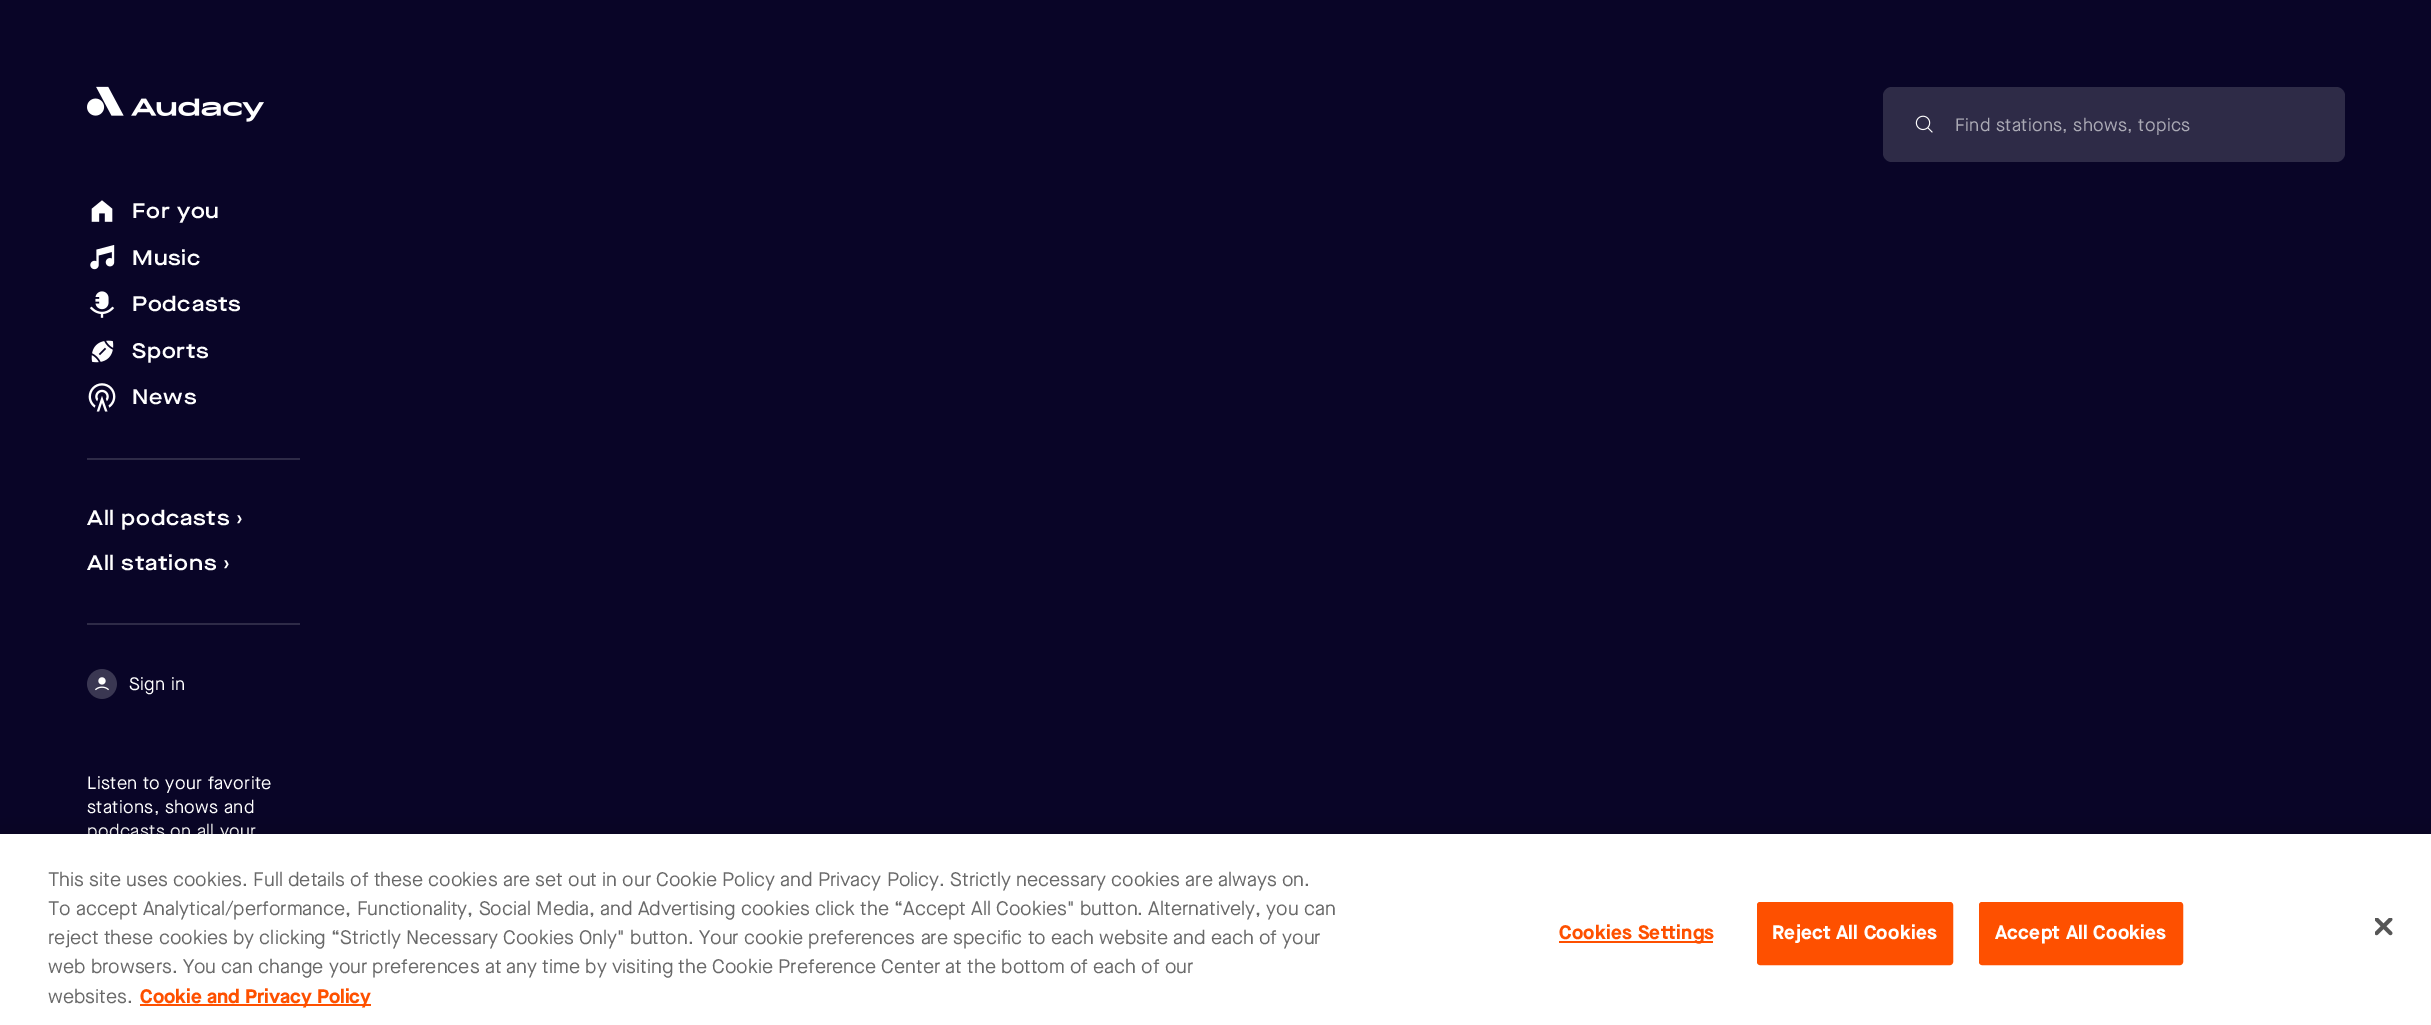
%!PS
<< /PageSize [2431 1025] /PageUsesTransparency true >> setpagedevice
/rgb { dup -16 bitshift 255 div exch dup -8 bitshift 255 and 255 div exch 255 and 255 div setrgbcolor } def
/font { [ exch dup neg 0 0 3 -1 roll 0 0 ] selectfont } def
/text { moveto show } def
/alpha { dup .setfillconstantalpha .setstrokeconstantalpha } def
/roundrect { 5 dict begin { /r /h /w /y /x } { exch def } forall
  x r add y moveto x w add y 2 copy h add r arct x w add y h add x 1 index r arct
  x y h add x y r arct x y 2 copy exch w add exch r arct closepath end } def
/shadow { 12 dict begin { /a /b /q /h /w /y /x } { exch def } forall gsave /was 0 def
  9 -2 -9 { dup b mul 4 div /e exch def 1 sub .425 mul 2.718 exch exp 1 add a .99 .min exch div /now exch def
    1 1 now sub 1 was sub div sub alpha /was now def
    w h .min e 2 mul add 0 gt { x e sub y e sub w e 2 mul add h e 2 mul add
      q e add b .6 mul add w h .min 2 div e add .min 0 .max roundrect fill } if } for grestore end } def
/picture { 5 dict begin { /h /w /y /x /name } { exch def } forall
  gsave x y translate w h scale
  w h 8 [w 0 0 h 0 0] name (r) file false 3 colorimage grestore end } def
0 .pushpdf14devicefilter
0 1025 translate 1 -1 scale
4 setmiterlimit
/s1 { /MaisonNeue-Regular 19.5 font 16#696969 rgb } def
/s2 { /MaisonNeue-Bold 19.5 font 16#FE5000 rgb } def
16#090527 rgb
0 0 2431 1025 rectfill
16#2E2B47 rgb
1883 87 462 75 9 roundrect fill
(pic1.raw) 1915 115 18 18 picture
/MaisonNeue-Regular 18 font
16#ABAAB5 rgb
1955 131 moveto 0.35 0 (Find stations, shows, topics) ashow
(pic2.raw) 87 86 177 36 picture
16#2E2B47 rgb
87 458 213 2 rectfill
(pic3.raw) 91 200 22 22 picture
/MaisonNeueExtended-SemiBold 21 font
16#FFFFFF rgb
132 218 moveto 0.8 0 (For you) ashow
(pic4.raw) 90 245 25 25 picture
132 265 moveto 0.8 0 (Music) ashow
(pic5.raw) 89 291 26 27 picture
132 311 moveto 0.8 0 (Podcasts) ashow
(pic6.raw) 91 340 23 23 picture
132 358 moveto 0.8 0 (Sports) ashow
(pic7.raw) 88 383 28 29 picture
132 404 moveto 0.8 0 (News) ashow
16#2E2B47 rgb
87 623 213 2 rectfill
16#FFFFFF rgb
87 525 moveto 0.8 0 (All podcasts ›) ashow
87 570 moveto 0.8 0 (All stations ›) ashow
(pic8.raw) 87 669 30 30 picture
/MaisonNeue-Regular 18 font
129 690 moveto 0.35 0 (Sign in) ashow
87 789 moveto 0.35 0 (Listen to your favorite) ashow
87 813 moveto 0.35 0 (stations, shows and) ashow
87 837 moveto 0.35 0 (podcasts on all your) ashow
16#000000 rgb
0 834 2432 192 0 13.5 0.2 shadow
16#FFFFFF rgb
0 834 2431 191 rectfill
s1
(This site uses cookies. Full details of these cookies are set out in our Cookie Policy and Privacy Policy. Strictly necessary cookies are always on.) 48 886 text
(To accept Analytical/performance, Functionality, Social Media, and Advertising cookies click the “Accept All Cookies" button. Alternatively, you can) 48 915 text
(reject these cookies by clicking “Strictly Necessary Cookies Only" button. Your cookie preferences are specific to each website and each of your) 48 944 text
(web browsers. You can change your preferences at any time by visiting the Cookie Preference Center at the bottom of each of our) 48 973 text
(websites.) 48 1003 text
16#FE5000 rgb
140 1004 231 2 rectfill
s2
(Cookie and Privacy Policy) 140 1003 text
1559 941 154 2 rectfill
1559 939 moveto 0.25 0 (Cookies Settings) ashow
1758 903 194 61 2 roundrect gsave fill grestore
2 setlinewidth
stroke
16#FFFFFF rgb
1772 939 moveto 0.25 0 (Reject All Cookies) ashow
16#FE5000 rgb
1980 903 202 61 2 roundrect gsave fill grestore
stroke
16#FFFFFF rgb
1995 939 moveto 0.25 0 (Accept All Cookies) ashow
(pic9.raw) 2375 918 18 18 picture
.poppdf14devicefilter showpage
